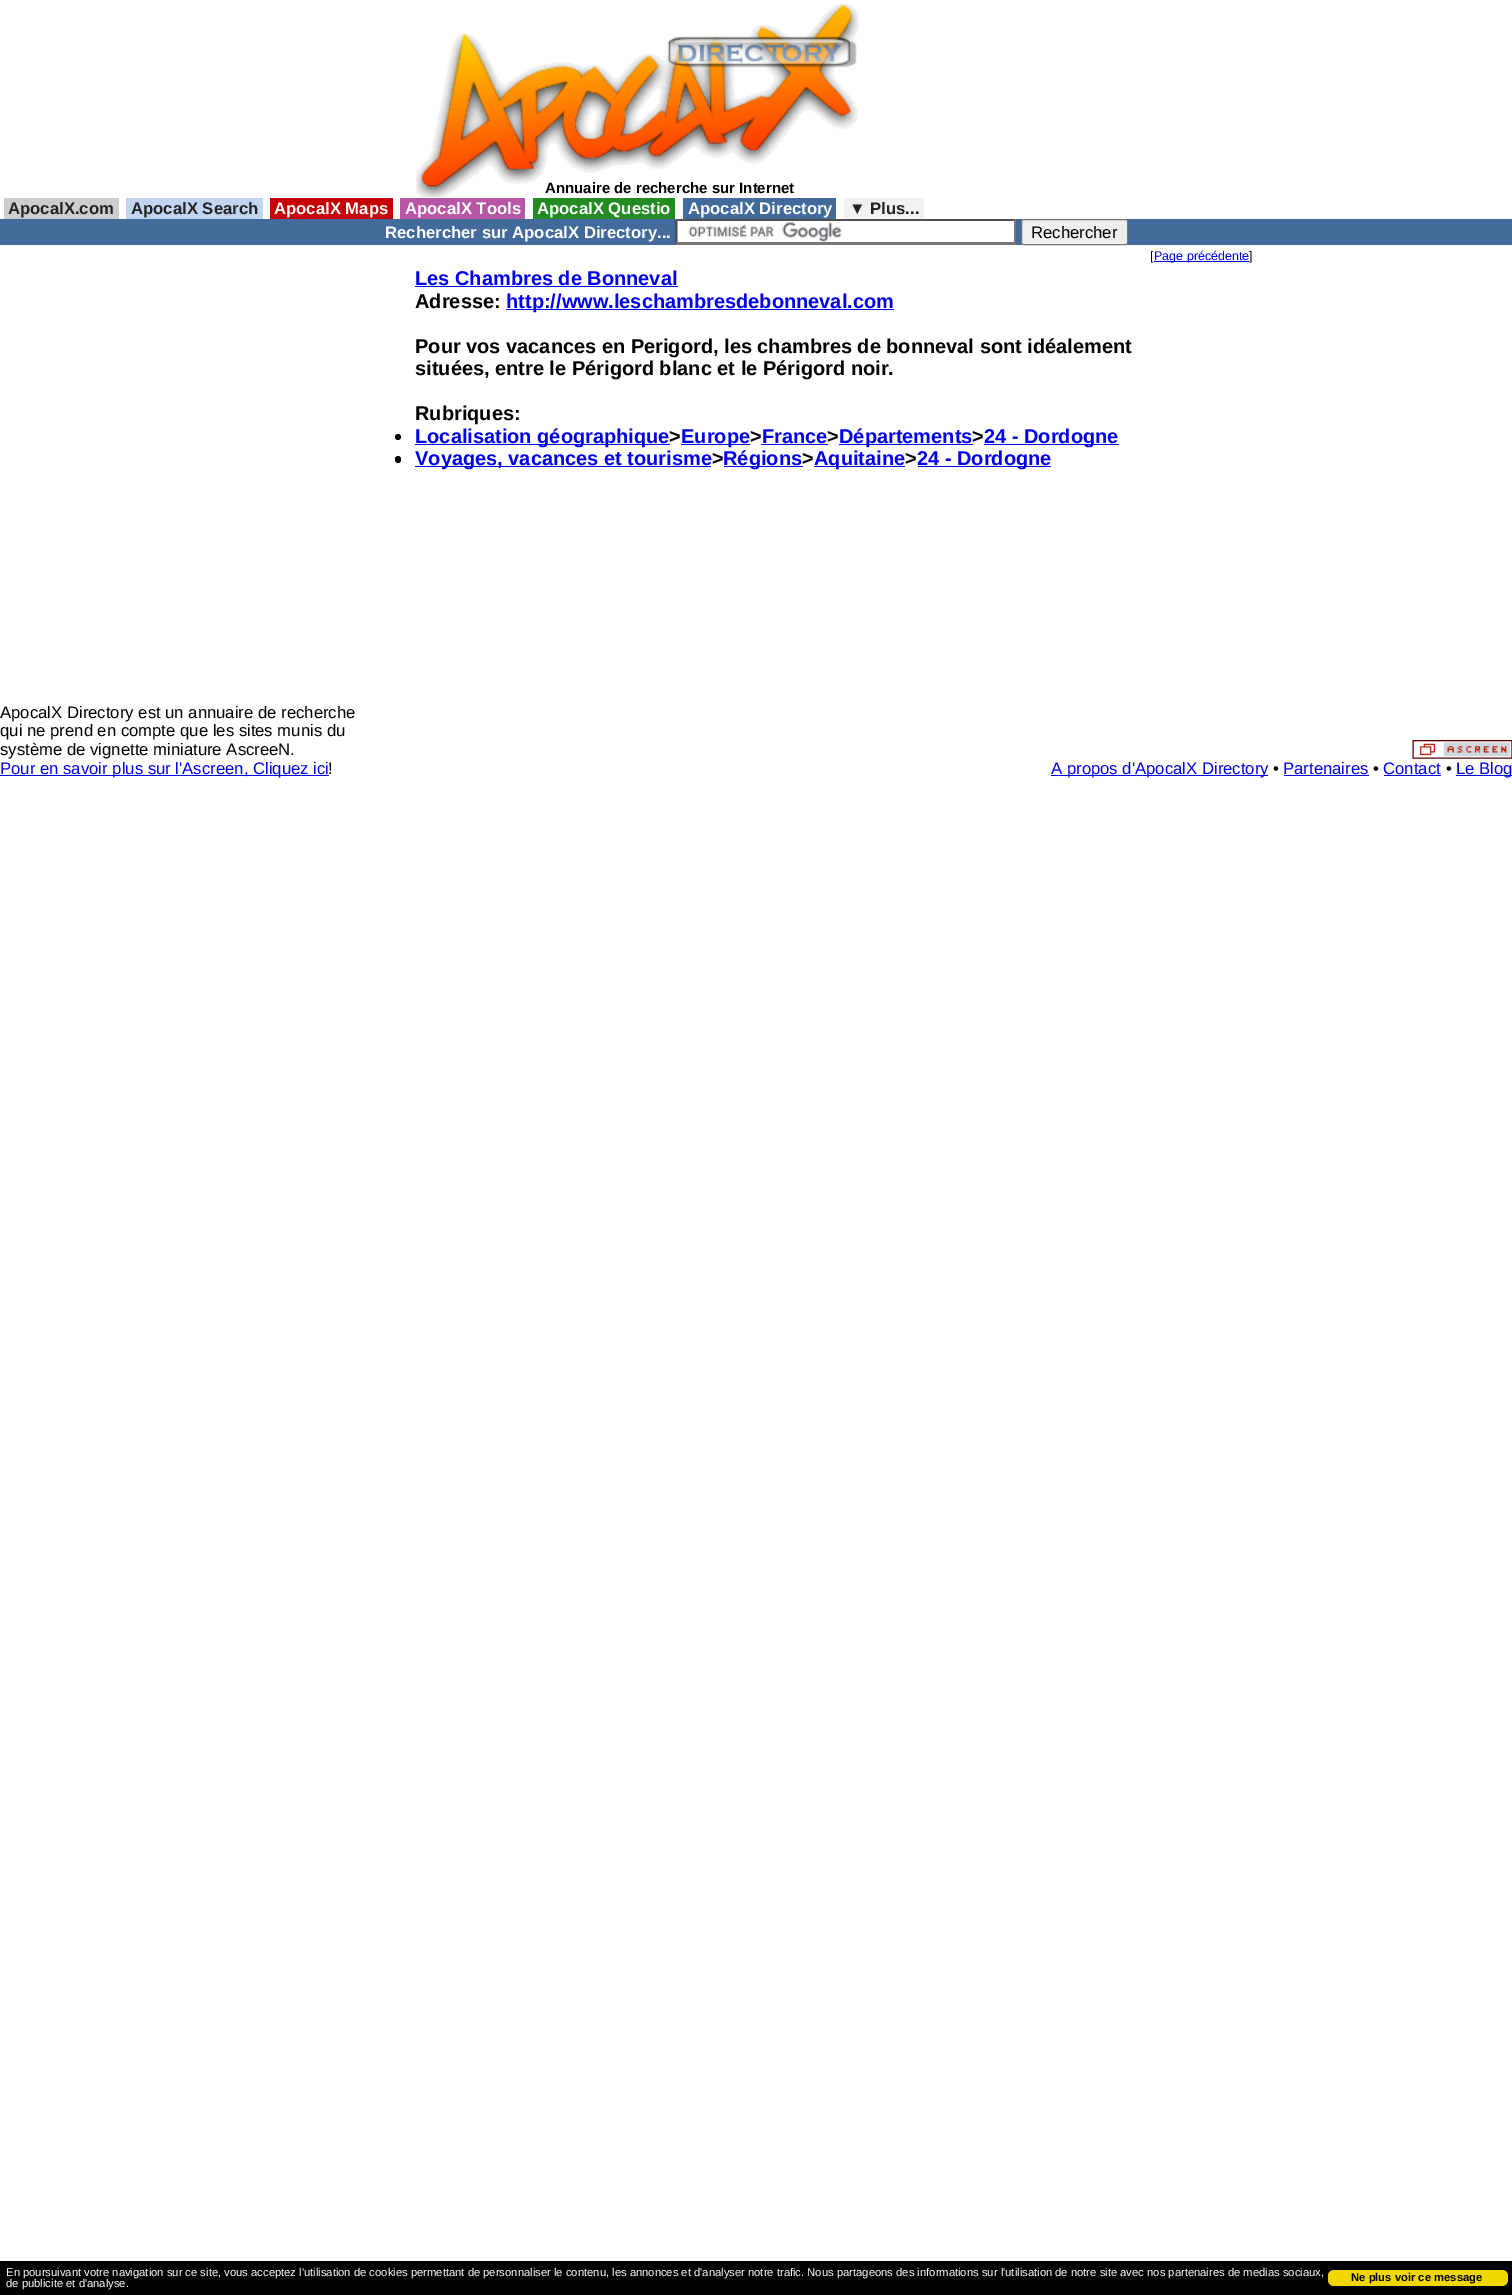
%!PS
<< /PageSize [1512 2295] >> setpagedevice
/rgb { dup -16 bitshift 255 div exch dup -8 bitshift 255 and 255 div exch 255 and 255 div setrgbcolor } def
/font { [ exch dup neg 0 0 3 -1 roll 0 0 ] selectfont } def
/text { moveto show } def
/circle { newpath 0 360 arc closepath } def
/roundrect { 5 dict begin { /r /h /w /y /x } { exch def } forall
  x r add y moveto x w add y 2 copy h add r arct x w add y h add x 1 index r arct
  x y h add x y r arct x y 2 copy exch w add exch r arct closepath end } def
/picture { 5 dict begin { /h /w /y /x /name } { exch def } forall
  gsave x y translate w h scale
  w h 8 [w 0 0 h 0 0] name (r) file false 3 colorimage grestore end } def
0 2295 translate 1 -1 scale
4 setmiterlimit
/s1 { /LiberationSans-Bold 15 font 16#000000 rgb } def
/s2 { /LiberationSans-Bold 16.7 font 16#232323 rgb } def
/s3 { /LiberationSans-Bold 16.7 font 16#FFFFFF rgb } def
/s4 { /LiberationSans-Regular 16.7 font 16#000000 rgb } def
/s5 { /LiberationSans-Regular 12.5 font 16#000000 rgb } def
/s6 { /LiberationSans-Regular 12.5 font 16#0000EE rgb } def
/s7 { /LiberationSans-Bold 20 font 16#0000EE rgb } def
/s8 { /LiberationSans-Bold 20 font 16#000000 rgb } def
/s9 { /LiberationSans-Regular 16.7 font 16#0000EE rgb } def
/s10 { /LiberationSans-Regular 11.25 font 16#FFFFFF rgb } def
/s11 { /LiberationSans-Bold 11.25 font 16#000000 rgb } def
16#FFFFFF rgb
0 0 1512 2295 rectfill
(pic1.raw) 416 33 129 165 picture
(pic2.raw) 545 4 314 169 picture
s1
(Annuaire de recherche sur Internet) 545 193 text
16#CDCDCD rgb
4 198 115 21 rectfill
s2
(ApocalX.com) 8 214 text
16#C1D4F1 rgb
126 198 137 21 rectfill
s2
(ApocalX Search) 131 214 text
16#C60000 rgb
270 198 123 21 rectfill
s3
(ApocalX Maps) 274 214 text
16#B856A5 rgb
400 198 125 21 rectfill
s3
(ApocalX Tools) 405 214 text
16#228B22 rgb
533 198 142 21 rectfill
s3
(ApocalX Questio) 537 214 text
16#426B9C rgb
683 198 153 21 rectfill
s3
(ApocalX Directory) 688 214 text
16#F1F1F1 rgb
844 198 80 21 rectfill
s2
(▼ Plus...) 849 214 text
16#426B9C rgb
0 219 1512 26 rectfill
s3
(Rechercher sur ApocalX Directory...) 385 238 text
675 219 341 26 rectfill
(pic3.raw) 688 222 154 20 picture
16#4F4F4F rgb
675 219 moveto 1016 219 lineto 1014 221 lineto 678 221 lineto closepath fill
16#767676 rgb
1016 219 moveto 1016 245 lineto 1014 242.5 lineto 1014 221 lineto closepath fill
1016 245 moveto 675 245 lineto 678 242 lineto 1014 242 lineto closepath fill
16#4F4F4F rgb
675 245 moveto 675 219 lineto 677.5 221 lineto 677.5 242.5 lineto closepath fill
16#EFEFEF rgb
1021.5 219.5 106 25 2 roundrect gsave fill grestore
16#767676 rgb
stroke
s4
(Rechercher) 1031 238 text
s5
([) 1150 260 text
16#0000EE rgb
1154 261 95 1 rectfill
(Page précédente) 1154 260 text
s5
(]) 1249 260 text
s7
(Les Chambres de Bonneval) 415 285 text
415 286 263 1 rectfill
s8
(Adresse:) 415 308 text
16#0000EE rgb
506 309 388 1 rectfill
(http://www.leschambresdebonneval.com) 506 308 text
s8
(Pour vos vacances en Perigord, les chambres de bonneval sont idéalement) 415 353 text
(situées, entre le Périgord blanc et le Périgord noir.) 415 375 text
(Rubriques:) 415 420 text
398 437 3 circle fill
16#0000EE rgb
415 444 255 1 rectfill
(Localisation géographique) 415 443 text
s8
(>) 669 443 text
16#0000EE rgb
681 444 69 1 rectfill
(Europe) 681 443 text
s8
(>) 750 443 text
s7
(France) 762 443 text
761 444 67 1 rectfill
s8
(>) 827 443 text
16#0000EE rgb
839 444 134 1 rectfill
(Départements) 839 443 text
s8
(>) 972 443 text
16#0000EE rgb
984 444 135 1 rectfill
(24 - Dordogne) 984 443 text
16#000000 rgb
395 456 6 7 3 roundrect fill
16#0000EE rgb
415 466 296 1 rectfill
(Voyages, vacances et tourisme) 415 465 text
s8
(>) 712 465 text
16#0000EE rgb
724 466 79 1 rectfill
(Régions) 723 465 text
s8
(>) 802 465 text
16#0000EE rgb
814 466 91 1 rectfill
(Aquitaine) 814 465 text
s8
(>) 905 465 text
16#0000EE rgb
918 466 133 1 rectfill
(24 - Dordogne) 917 465 text
s4
(ApocalX Directory est un annuaire de recherche) 0 718 text
(qui ne prend en compte que les sites munis du) 0 736 text
(système de vignette miniature AscreeN.) 0 755 text
16#0000EE rgb
0 775 329 1 rectfill
(Pour en savoir plus sur l'Ascreen, Cliquez ici) 0 774 text
s4
(!) 328 774 text
(pic4.raw) 1412 740 100 19 picture
16#0000EE rgb
1051 775 217 1 rectfill
(A propos d'ApocalX Directory) 1051 774 text
s4
(•) 1273 774 text
s9
(Partenaires) 1283 774 text
1284 775 85 1 rectfill
s4
(•) 1373 774 text
s9
(Contact) 1383 774 text
1384 775 57 1 rectfill
s4
(•) 1446 774 text
16#0000EE rgb
1456 775 56 1 rectfill
(Le Blog) 1456 774 text
16#000000 rgb
0 2261 1512 34 rectfill
s10
(En poursuivant votre navigation sur ce site, vous acceptez l'utilisation de cookies permettant de personnaliser le contenu, les annonces et d'analyser notre trafic. Nous partageons des informations sur l'utilisation de notre site avec nos partenaires de medias sociaux,) 6 2276 text
(de publicite et d'analyse.) 6 2287 text
16#F1D600 rgb
1328 2270 180 16 6 roundrect fill
s11
(Ne plus voir ce message) 1351 2281 text
showpage
